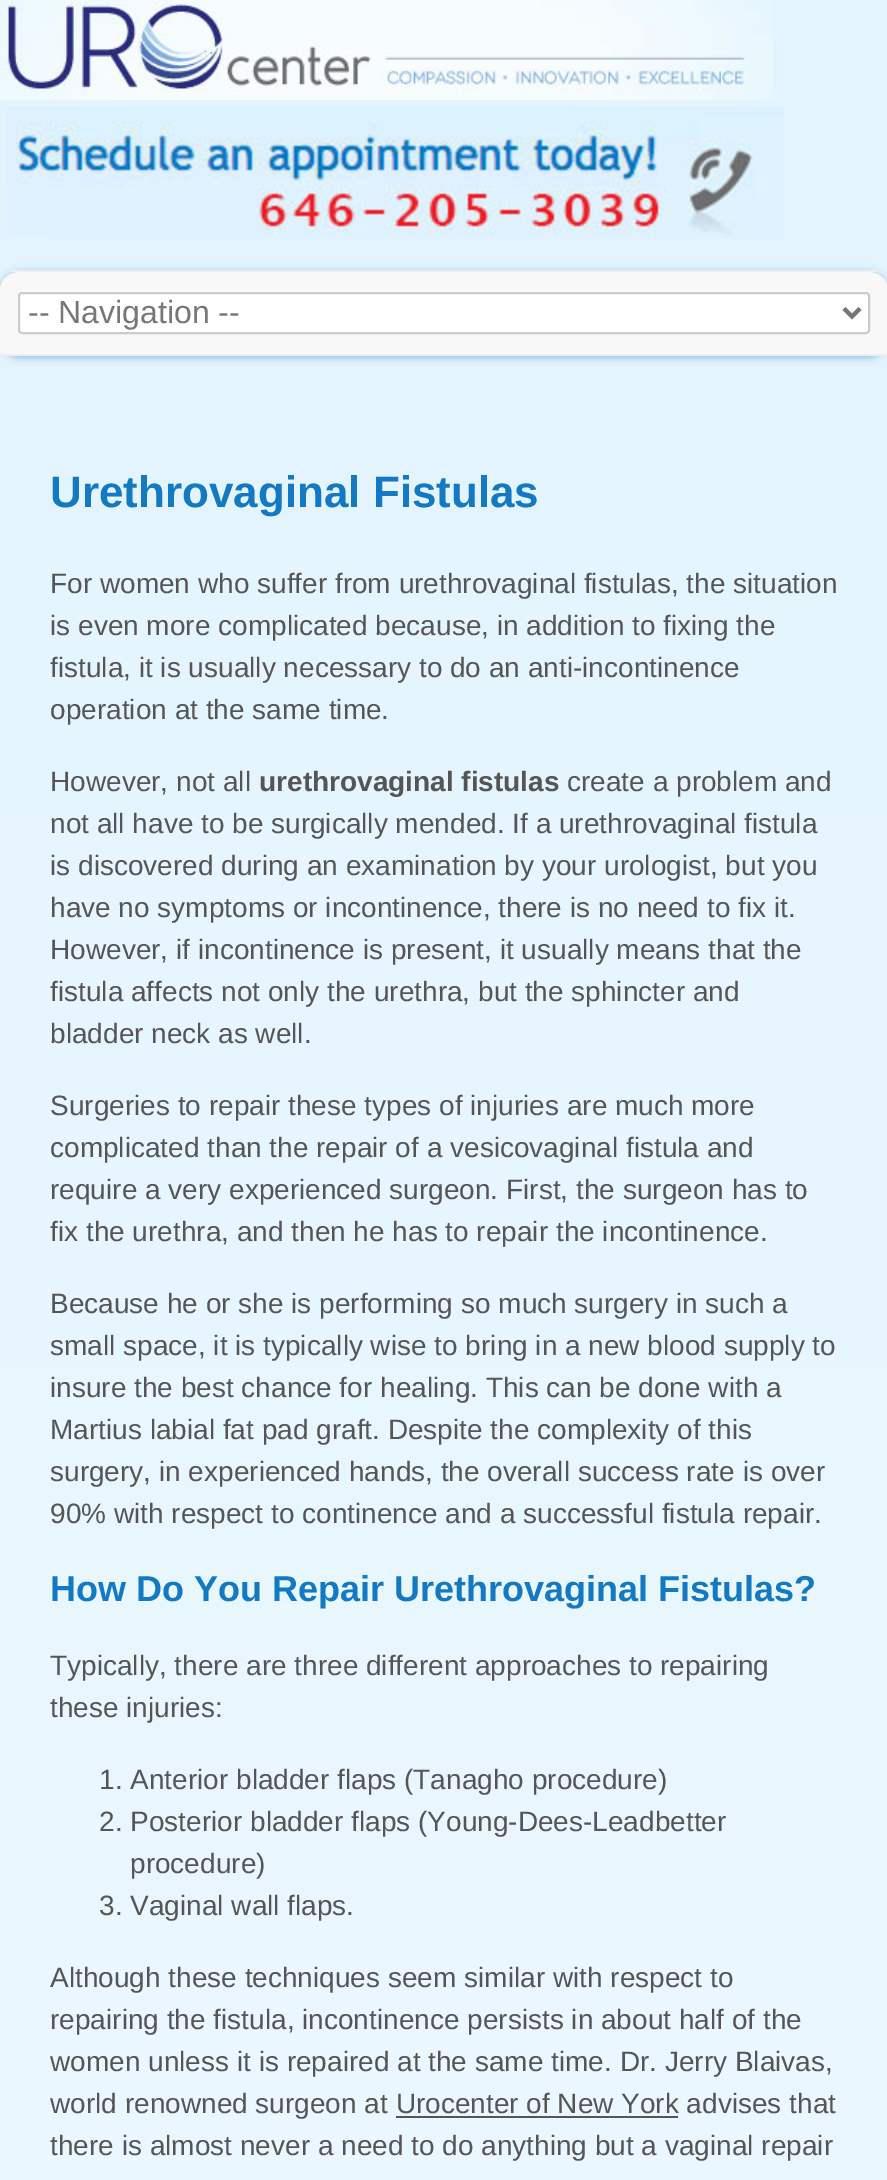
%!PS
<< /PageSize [887 2180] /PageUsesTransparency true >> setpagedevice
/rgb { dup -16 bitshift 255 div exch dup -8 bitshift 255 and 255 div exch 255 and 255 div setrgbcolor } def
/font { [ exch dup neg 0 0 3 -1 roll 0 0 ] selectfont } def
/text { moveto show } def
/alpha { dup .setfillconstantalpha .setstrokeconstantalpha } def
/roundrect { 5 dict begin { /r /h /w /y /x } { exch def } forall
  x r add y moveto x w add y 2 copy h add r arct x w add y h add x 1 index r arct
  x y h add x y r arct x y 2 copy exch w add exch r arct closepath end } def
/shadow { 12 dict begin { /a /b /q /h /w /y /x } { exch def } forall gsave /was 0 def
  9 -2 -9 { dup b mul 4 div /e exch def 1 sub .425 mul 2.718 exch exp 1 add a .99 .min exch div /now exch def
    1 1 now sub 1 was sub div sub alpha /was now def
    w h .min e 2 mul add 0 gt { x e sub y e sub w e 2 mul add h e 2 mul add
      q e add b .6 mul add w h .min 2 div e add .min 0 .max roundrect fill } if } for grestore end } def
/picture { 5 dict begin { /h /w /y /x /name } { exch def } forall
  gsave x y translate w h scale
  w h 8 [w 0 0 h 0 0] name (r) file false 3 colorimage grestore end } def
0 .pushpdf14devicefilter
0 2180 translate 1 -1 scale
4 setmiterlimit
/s1 { /LiberationSans-Regular 32 font 16#777777 rgb } def
/s2 { /LiberationSans-Bold 44 font 16#1279C2 rgb } def
/s3 { /LiberationSans-Regular 28 font 16#555555 rgb } def
/s4 { /LiberationSans-Bold 28 font 16#555555 rgb } def
/s5 { /LiberationSans-Bold 36 font 16#1279C2 rgb } def
16#FFFFFF rgb
0 0 887 2180 rectfill
gsave 0 0 moveto 887 0 lineto 887 2180 lineto 0 2180 lineto closepath clip newpath
<< /ShadingType 2 /ColorSpace /DeviceRGB /Coords [444 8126 444 0] /Extend [true true] /Function << /FunctionType 2 /Domain [0 1] /C0 [1 1 1] /C1 [0.89 0.957 0.996] /N 1 >> >> shfill grestore
(pic1.raw) 0 0 773 100 picture
(pic2.raw) 7 106 777 133 picture
16#91BDDC rgb
0 272 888 86 20 4 1 shadow
16#F8F8F8 rgb
20 272 moveto 868 272 lineto 879 272 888 280 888 290 curveto 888 354 lineto 0 354 lineto 0 290 lineto 0 280 9 272 20 272 curveto closepath fill
16#EEEEEE rgb
10 270 868 2 rectfill
0 354 887 2 rectfill
16#FFFFFF rgb
19 293 850 40 3 roundrect gsave fill grestore
16#CCCCCC rgb
2 setlinewidth
stroke
16#777777 rgb
4 setlinewidth
844 308.5 moveto 852 316.5 lineto 860 308.5 lineto stroke
s1
(-- Navigation --) 28 323 text
s2
(Urethrovaginal Fistulas) 50 507 text
s3
(For women who suffer from urethrovaginal fistulas, the situation) 50 593 text
(is even more complicated because, in addition to fixing the) 50 635 text
(fistula, it is usually necessary to do an anti-incontinence) 50 677 text
(operation at the same time.) 50 719 text
(However, not all) 50 791 text
s4
(urethrovaginal fistulas) 259 791 text
s3
(create a problem and) 567 791 text
(not all have to be surgically mended. If a urethrovaginal fistula) 50 833 text
(is discovered during an examination by your urologist, but you) 50 875 text
(have no symptoms or incontinence, there is no need to fix it.) 50 917 text
(However, if incontinence is present, it usually means that the) 50 959 text
(fistula affects not only the urethra, but the sphincter and) 50 1001 text
(bladder neck as well.) 50 1043 text
(Surgeries to repair these types of injuries are much more) 50 1115 text
(complicated than the repair of a vesicovaginal fistula and) 50 1157 text
(require a very experienced surgeon. First, the surgeon has to) 50 1199 text
(fix the urethra, and then he has to repair the incontinence.) 50 1241 text
(Because he or she is performing so much surgery in such a) 50 1313 text
(small space, it is typically wise to bring in a new blood supply to) 50 1355 text
(insure the best chance for healing. This can be done with a) 50 1397 text
(Martius labial fat pad graft. Despite the complexity of this) 50 1439 text
(surgery, in experienced hands, the overall success rate is over) 50 1481 text
(90% with respect to continence and a successful fistula repair.) 50 1523 text
s5
(How Do You Repair Urethrovaginal Fistulas?) 50 1601 text
s3
(Typically, there are three different approaches to repairing) 50 1675 text
(these injuries:) 50 1717 text
(1. Anterior bladder flaps \(Tanagho procedure\)) 99 1789 text
(2. Posterior bladder flaps \(Young-Dees-Leadbetter) 99 1831 text
(procedure\)) 130 1873 text
(3. Vaginal wall flaps.) 99 1915 text
(Although these techniques seem similar with respect to) 50 1987 text
(repairing the fistula, incontinence persists in about half of the) 50 2029 text
(women unless it is repaired at the same time. Dr. Jerry Blaivas,) 50 2071 text
(world renowned surgeon at Urocenter of New York advises that) 50 2113 text
396 2116 282 2 rectfill
(there is almost never a need to do anything but a vaginal repair) 50 2155 text
.poppdf14devicefilter showpage
